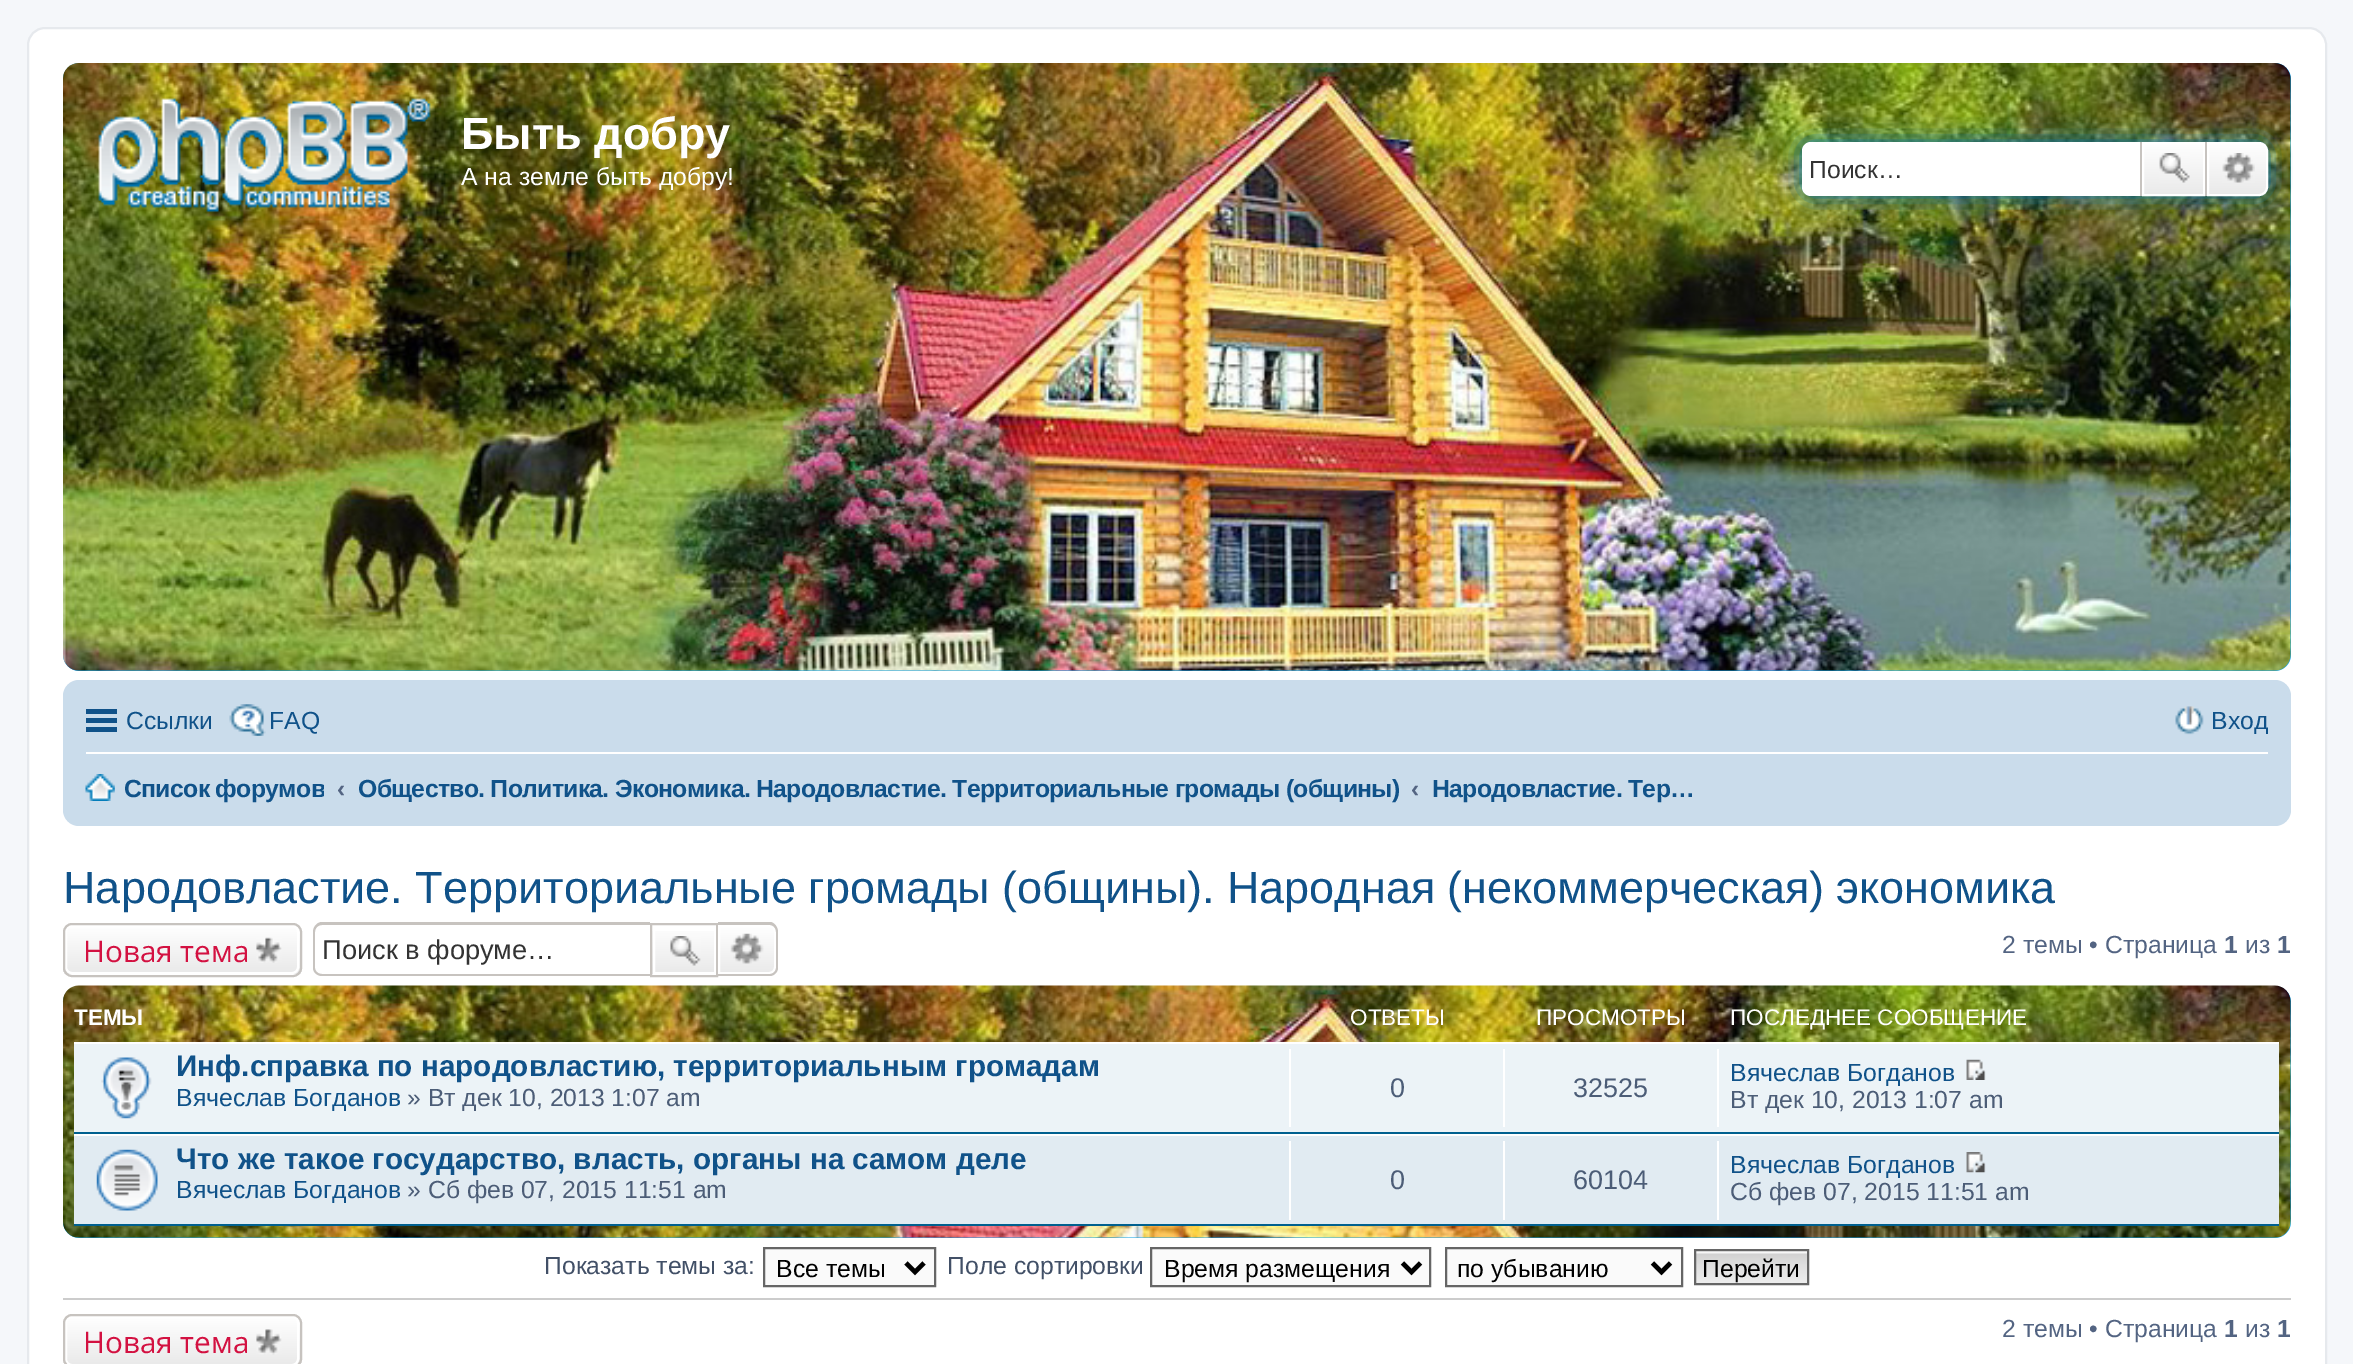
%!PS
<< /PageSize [2353 1364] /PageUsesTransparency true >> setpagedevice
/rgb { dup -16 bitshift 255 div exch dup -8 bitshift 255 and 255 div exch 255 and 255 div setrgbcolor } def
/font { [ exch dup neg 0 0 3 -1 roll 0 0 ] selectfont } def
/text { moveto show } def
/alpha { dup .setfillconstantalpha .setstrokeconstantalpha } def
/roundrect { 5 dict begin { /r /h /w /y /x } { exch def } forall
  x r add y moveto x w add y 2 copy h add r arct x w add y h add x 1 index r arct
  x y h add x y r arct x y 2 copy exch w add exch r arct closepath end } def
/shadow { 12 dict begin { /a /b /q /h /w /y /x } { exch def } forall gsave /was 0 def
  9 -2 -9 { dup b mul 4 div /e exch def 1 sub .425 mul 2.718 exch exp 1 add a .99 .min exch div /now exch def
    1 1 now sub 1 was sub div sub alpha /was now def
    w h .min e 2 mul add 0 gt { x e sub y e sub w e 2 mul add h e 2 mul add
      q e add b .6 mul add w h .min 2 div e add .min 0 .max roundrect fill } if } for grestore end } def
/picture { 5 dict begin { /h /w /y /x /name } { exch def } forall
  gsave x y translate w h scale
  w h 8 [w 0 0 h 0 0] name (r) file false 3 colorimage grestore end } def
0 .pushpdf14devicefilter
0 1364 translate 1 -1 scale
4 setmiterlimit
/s1 { /LiberationSans-Bold 45 font 16#FFFFFF rgb } def
/s2 { /LiberationSans-Regular 24.75 font 16#FFFFFF rgb } def
/s3 { /LiberationSans-Regular 24.75 font 16#333333 rgb } def
/s4 { /LiberationSans-Regular 24.75 font 16#105289 rgb } def
/s5 { /LiberationSans-Bold 24.75 font 16#536482 rgb } def
/s6 { /LiberationSans-Regular 45 font 16#105289 rgb } def
/s7 { /OpenSans-Regular 29.7 font 16#D31141 rgb } def
/s8 { /LiberationSans-Regular 27.25 font 16#333333 rgb } def
/s9 { /LiberationSans-Regular 24.75 font 16#536482 rgb } def
/s10 { /LiberationSans-Bold 22.5 font 16#FFFFFF rgb } def
/s11 { /LiberationSans-Regular 22.5 font 16#FFFFFF rgb } def
/s12 { /LiberationSans-Bold 29.7 font 16#105289 rgb } def
/s13 { /LiberationSans-Regular 24.75 font 16#4C5D77 rgb } def
/s14 { /LiberationSans-Regular 27 font 16#4C5D77 rgb } def
/s15 { /LiberationSans-Regular 24.75 font 16#425067 rgb } def
/s16 { /LiberationSans-Regular 24.75 font 16#000000 rgb } def
16#F5F7FA rgb
0 0 2353 1364 rectfill
16#FFFFFF rgb
28 28 2298 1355 17 roundrect gsave fill grestore
16#E6E9ED rgb
2 setlinewidth
stroke
16#12A3EB rgb
63 63 2228 608 16 roundrect fill
(pic1.raw) 63 63 2228 608 picture
(pic2.raw) 98 98 333 115 picture
s1
(Быть добру) 461 149 text
s2
(А на земле быть добру!) 461 185 text
16#0075B0 rgb
1802 142 466 54 9 11 1 shadow
16#FFFFFF rgb
1811 142 moveto 2140 142 lineto 2140 196 lineto 1811 196 lineto 1806 196 1802 192 1802 187 curveto 1802 151 lineto 1802 146 1806 142 1811 142 curveto closepath fill
s3
(Поиск…) 1809 178 text
gsave 2144 144 moveto 2203 144 lineto 2203 194 lineto 2144 194 lineto closepath clip newpath
<< /ShadingType 2 /ColorSpace /DeviceRGB /Coords [2174 142 2174 196] /Extend [true true] /Function << /FunctionType 2 /Domain [0 1] /C0 [1 1 1] /C1 [0.914 0.914 0.914] /N 1 >> >> shfill grestore
16#FFFFFF rgb
2143 143 61 52 rectstroke
16#C7C3BF rgb
2205 142 2 54 rectfill
2140 142 2 54 rectfill
(pic3.raw) 2159 153 31 30 picture
gsave 2208 143 moveto 2259 143 lineto 2263.5 143 2267 146.5 2267 151 curveto 2267 187 lineto 2267 191.5 2263.5 195 2259 195 curveto 2208 195 lineto closepath clip newpath
<< /ShadingType 2 /ColorSpace /DeviceRGB /Coords [2238 142 2238 196] /Extend [true true] /Function << /FunctionType 2 /Domain [0 1] /C0 [1 1 1] /C1 [0.914 0.914 0.914] /N 1 >> >> shfill grestore
16#FFFFFF rgb
2208 143 moveto 2259 143 lineto 2263.5 143 2267 146.5 2267 151 curveto 2267 187 lineto 2267 191.5 2263.5 195 2259 195 curveto 2208 195 lineto closepath stroke
(pic4.raw) 2222 153 33 30 picture
16#CADCEB rgb
63 680 2228 146 16 roundrect fill
16#105289 rgb
86 709 31 5 rectfill
86 718 31 5 rectfill
86 727 31 5 rectfill
(Ссылки) 126 729 text
(pic5.raw) 229 704 37 32 picture
(FAQ) 269 729 text
(pic6.raw) 2175 706 29 29 picture
(Вход) 2211 729 text
16#FFFFFF rgb
86 752 2182 2 rectfill
(pic7.raw) 85 774 30 27 picture
gsave
86 761 238 54 rectclip
/LiberationSans-Bold 24.75 font
16#105289 rgb
124 797 moveto -0.67 0 (Список форумов) ashow
grestore
s5
(‹) 337 797 text
16#105289 rgb
358 797 moveto -0.67 0 (Общество. Политика. Экономика. Народовластие. Территориальные громады \(общины\)) ashow
s5
(‹) 1411 797 text
16#105289 rgb
1432 797 moveto -0.67 0 (Народовластие. Тер…) ashow
s6
(Народовластие. Территориальные громады \(общины\). Народная \(некоммерческая\) экономика) 63 903 text
gsave
63 923 239 54 9 roundrect clip newpath
gsave 63 925 moveto 302 925 lineto 302 974 lineto 63 974 lineto closepath clip newpath
<< /ShadingType 2 /ColorSpace /DeviceRGB /Coords [182 925 182 974] /Extend [true true] /Function << /FunctionType 2 /Domain [0 1] /C0 [1 1 1] /C1 [0.914 0.914 0.914] /N 1 >> >> shfill grestore
grestore
16#FFFFFF rgb
66 926 232 47 6 roundrect stroke
16#C7C3BF rgb
64 924 237 52 8 roundrect stroke
s7
(Новая тема) 83 962 text
(pic8.raw) 256 937 26 26 picture
16#C7C3BF rgb
322 922 moveto 650 922 lineto 650 976 lineto 322 976 lineto 317 976 313 972 313 968 curveto 313 932 lineto 313 927 317 922 322 922 curveto closepath 322 925 moveto 650 925 lineto 650 974 lineto 322 974 lineto 318 974 315 971 315 968 curveto 315 932 lineto 315 928 318 925 322 925 curveto closepath eofill
s8
(Поиск в форуме…) 322 959 text
gsave 652 931 moveto 714 931 lineto 714 974 lineto 652 974 lineto closepath clip newpath
<< /ShadingType 2 /ColorSpace /DeviceRGB /Coords [684 925 684 974] /Extend [true true] /Function << /FunctionType 2 /Domain [0 1] /C0 [1 1 1] /C1 [0.914 0.914 0.914] /N 1 >> >> shfill grestore
16#FFFFFF rgb
654 926 61 47 rectstroke
16#C7C3BF rgb
651 924 66 52 rectstroke
(pic9.raw) 670 936 31 30 picture
gsave 719 926 moveto 769 926 lineto 772.5 926 775 928.5 775 932 curveto 775 967 lineto 775 970.5 772.5 973 769 973 curveto 719 973 lineto closepath clip newpath
<< /ShadingType 2 /ColorSpace /DeviceRGB /Coords [747 925 747 974] /Extend [true true] /Function << /FunctionType 2 /Domain [0 1] /C0 [1 1 1] /C1 [0.914 0.914 0.914] /N 1 >> >> shfill grestore
16#FFFFFF rgb
719 926 moveto 769 926 lineto 772.5 926 775 928.5 775 932 curveto 775 967 lineto 775 970.5 772.5 973 769 973 curveto 719 973 lineto closepath stroke
16#C7C3BF rgb
718 922 moveto 770 922 lineto 774 922 778 927 778 932 curveto 778 968 lineto 778 972 774 976 770 976 curveto 718 976 lineto closepath 718 925 moveto 770 925 lineto 773 925 776 928 776 932 curveto 776 968 lineto 776 971 773 974 770 974 curveto 718 974 lineto closepath eofill
(pic10.raw) 730 933 34 31 picture
s9
(2 темы • Страница) 2002 953 text
s5
(1) 2224 953 text
s9
(из) 2245 953 text
s5
(1) 2277 953 text
16#12A3EB rgb
63 986 2228 252 16 roundrect fill
(pic11.raw) 62 985 2229 253 picture
s10
(ТЕМЫ) 74 1025 text
s11
(ОТВЕТЫ) 1350 1025 text
(ПРОСМОТРЫ) 1536 1025 text
(ПОСЛЕДНЕЕ СООБЩЕНИЕ) 1730 1025 text
16#ECF3F7 rgb
74 1044 2205 88 rectfill
16#FFFFFF rgb
74 1042 2205 2 rectfill
16#00608F rgb
74 1132 2205 2 rectfill
(pic12.raw) 101 1057 51 62 picture
s12
(Инф.справка по народовластию, территориальным громадам) 176 1076 text
s4
(Вячеслав Богданов) 176 1106 text
s13
(» Вт дек 10, 2013 1:07 am) 407 1106 text
16#FFFFFF rgb
1289 1049 2 78 rectfill
s14
(0) 1390 1097 text
16#FFFFFF rgb
1503 1049 2 78 rectfill
s14
(32525) 1573 1097 text
16#FFFFFF rgb
1717 1049 2 78 rectfill
s4
(Вячеслав Богданов) 1730 1081 text
(pic13.raw) 1966 1059 20 21 picture
s13
(Вт дек 10, 2013 1:07 am) 1730 1108 text
16#E1EBF2 rgb
74 1136 2205 88 rectfill
16#FFFFFF rgb
74 1134 2205 2 rectfill
16#00608F rgb
74 1224 2205 2 rectfill
(pic14.raw) 96 1149 62 62 picture
s12
(Что же такое государство, власть, органы на самом деле) 176 1169 text
s4
(Вячеслав Богданов) 176 1198 text
s13
(» Сб фев 07, 2015 11:51 am) 407 1198 text
16#FFFFFF rgb
1289 1141 2 79 rectfill
s14
(0) 1390 1189 text
16#FFFFFF rgb
1503 1141 2 79 rectfill
s14
(60104) 1573 1189 text
16#FFFFFF rgb
1717 1141 2 79 rectfill
s4
(Вячеслав Богданов) 1730 1173 text
(pic15.raw) 1966 1152 20 21 picture
s13
(Сб фев 07, 2015 11:51 am) 1730 1200 text
s15
(Показать темы за:) 544 1274 text
16#FAFAFA rgb
764 1248 moveto 935 1248 lineto 935 1286 lineto 764 1286 lineto closepath gsave fill grestore
16#666666 rgb
stroke
16#000000 rgb
4.5 setlinewidth
906 1263 moveto 915 1272 lineto 924 1263 lineto stroke
(Все темы) 776 1277 text
s15
(Поле сортировки) 947 1274 text
16#FAFAFA rgb
1151 1248 moveto 1430 1248 lineto 1430 1286 lineto 1151 1286 lineto closepath gsave fill grestore
16#666666 rgb
2 setlinewidth
stroke
16#000000 rgb
4.5 setlinewidth
1402.5 1263 moveto 1411.5 1272 lineto 1420.5 1263 lineto stroke
(Время размещения) 1164 1277 text
16#FAFAFA rgb
1446 1248 moveto 1682 1248 lineto 1682 1286 lineto 1446 1286 lineto closepath gsave fill grestore
16#666666 rgb
2 setlinewidth
stroke
16#000000 rgb
4.5 setlinewidth
1652.5 1263 moveto 1661.5 1272 lineto 1670.5 1263 lineto stroke
(по убыванию) 1457 1277 text
(pic16.raw) 1696 1251 111 32 picture
16#666666 rgb
2 setlinewidth
1695 1250 113 34 rectstroke
s16
(Перейти) 1702 1277 text
16#CCCCCC rgb
63 1298 2228 2 rectfill
gsave
63 1314 239 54 9 roundrect clip newpath
gsave 63 1316 moveto 302 1316 lineto 302 1364 lineto 63 1364 lineto closepath clip newpath
<< /ShadingType 2 /ColorSpace /DeviceRGB /Coords [182 1316 182 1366] /Extend [true true] /Function << /FunctionType 2 /Domain [0 1] /C0 [1 1 1] /C1 [0.914 0.914 0.914] /N 1 >> >> shfill grestore
grestore
16#FFFFFF rgb
66 1317 232 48 6 roundrect stroke
16#C7C3BF rgb
64 1315 237 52 8 roundrect stroke
s7
(Новая тема) 83 1353 text
(pic17.raw) 256 1329 26 26 picture
s9
(2 темы • Страница) 2002 1337 text
s5
(1) 2224 1337 text
s9
(из) 2245 1337 text
s5
(1) 2277 1337 text
.poppdf14devicefilter showpage
